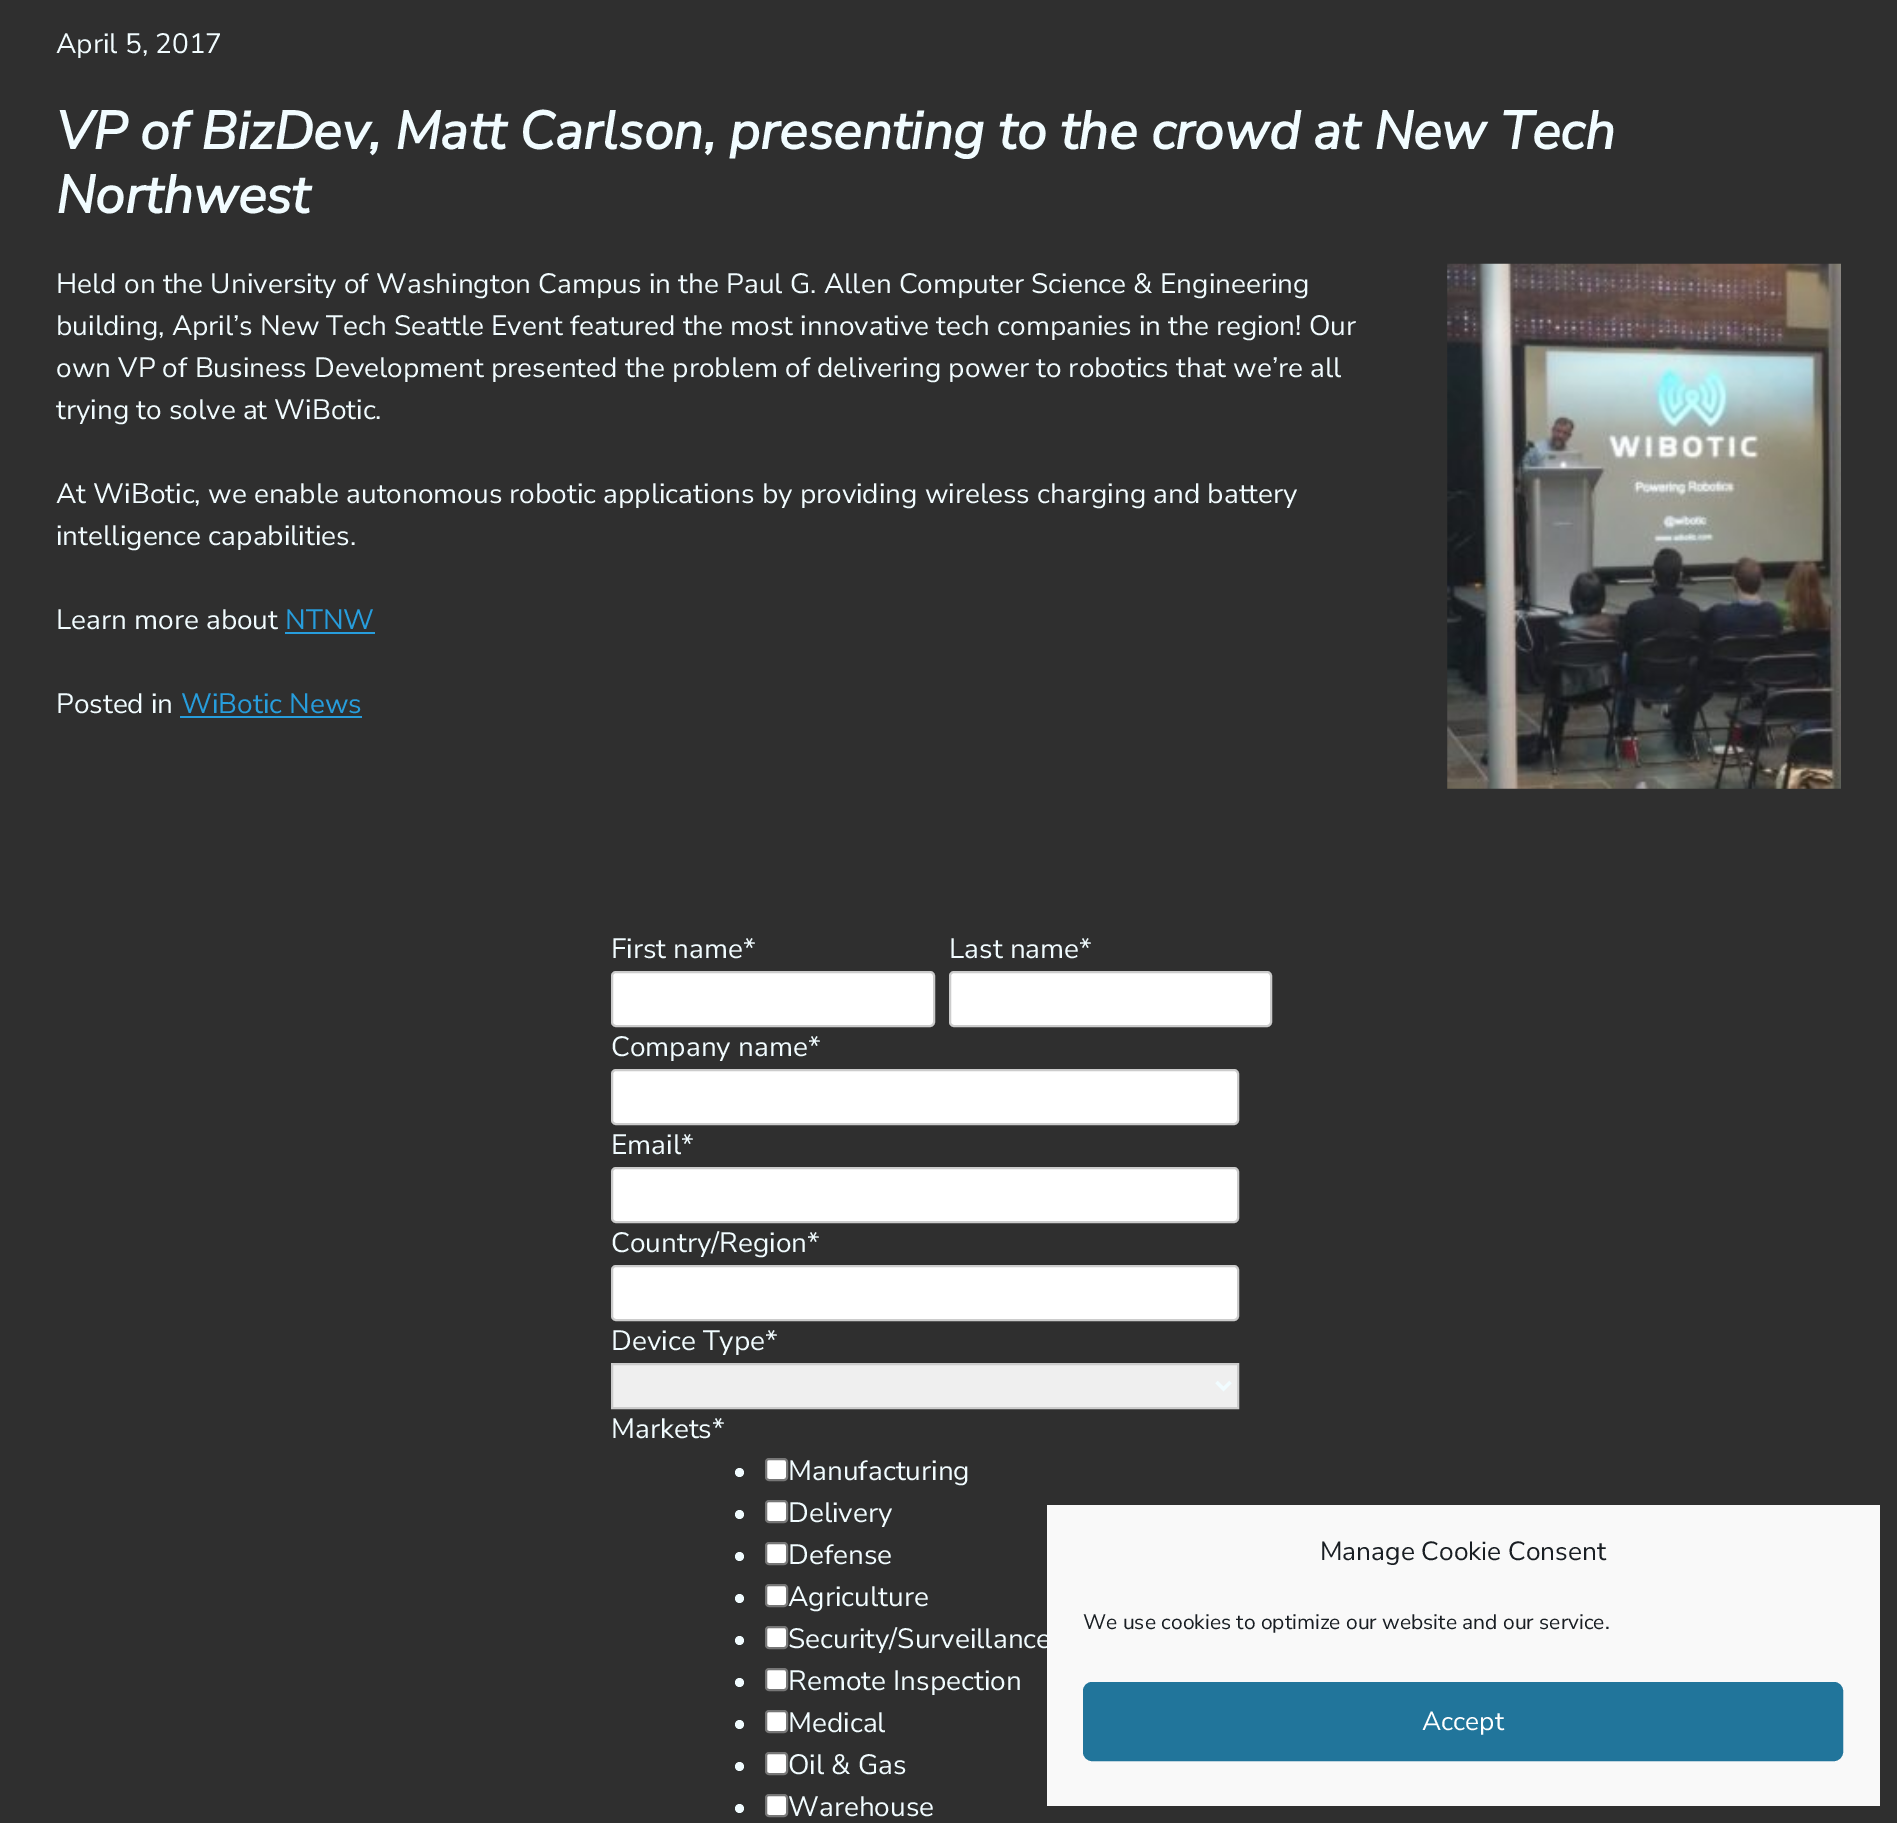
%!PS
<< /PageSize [1897 1823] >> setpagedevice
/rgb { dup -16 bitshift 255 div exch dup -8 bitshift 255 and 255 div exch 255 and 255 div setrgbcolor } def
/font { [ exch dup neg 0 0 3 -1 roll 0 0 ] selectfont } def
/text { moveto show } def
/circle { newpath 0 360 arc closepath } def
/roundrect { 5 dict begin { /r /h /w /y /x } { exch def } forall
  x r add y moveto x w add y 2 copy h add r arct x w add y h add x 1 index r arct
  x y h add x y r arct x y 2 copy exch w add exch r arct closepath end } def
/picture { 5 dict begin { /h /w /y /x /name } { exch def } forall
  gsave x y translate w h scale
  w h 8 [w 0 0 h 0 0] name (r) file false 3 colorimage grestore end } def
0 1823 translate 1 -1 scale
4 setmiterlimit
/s1 { /NunitoSans-Regular 28 font 16#F1FCFF rgb } def
/s2 { /NunitoSans-BoldItalic 53.2 font 16#F1FCFF rgb } def
/s3 { /NunitoSans-Regular 28 font 16#279DDC rgb } def
/s4 { /NunitoSans-Regular 26.25 font 16#191E23 rgb } def
/s5 { /NunitoSans-Regular 21 font 16#191E23 rgb } def
/s6 { /NunitoSans-Regular 26.25 font 16#FFFFFF rgb } def
16#2F2F2F rgb
0 0 1897 1823 rectfill
s1
(April 5, 2017) 56 53 text
s2
(VP of BizDev, Matt Carlson, presenting to the crowd at New Tech) 56 149 text
(Northwest) 56 213 text
s1
(Held on the University of Washington Campus in the Paul G. Allen Computer Science & Engineering) 56 293 text
(pic1.raw) 1447 263 394 526 picture
(building, April’s New Tech Seattle Event featured the most innovative tech companies in the region! Our) 56 335 text
(own VP of Business Development presented the problem of delivering power to robotics that we’re all) 56 377 text
(trying to solve at WiBotic.) 56 419 text
(At WiBotic, we enable autonomous robotic applications by providing wireless charging and battery) 56 503 text
(intelligence capabilities.) 56 545 text
(Learn more about) 56 629 text
s3
(NTNW) 285 629 text
285 632 90 2 rectfill
s1
(Posted in) 56 713 text
s3
(WiBotic News) 181 713 text
180 716 182 2 rectfill
s1
(First name*) 611 958 text
16#FFFFFF rgb
612 972 322 54 4 roundrect gsave fill grestore
16#CCCCCC rgb
2 setlinewidth
stroke
s1
(Last name*) 949 958 text
16#FFFFFF rgb
950 972 321 54 4 roundrect gsave fill grestore
16#CCCCCC rgb
stroke
s1
(Company name*) 611 1056 text
16#FFFFFF rgb
612 1070 626 54 4 roundrect gsave fill grestore
16#CCCCCC rgb
stroke
s1
(Email*) 611 1154 text
16#FFFFFF rgb
612 1168 626 54 4 roundrect gsave fill grestore
16#CCCCCC rgb
stroke
s1
(Country/Region*) 611 1252 text
16#FFFFFF rgb
612 1266 626 54 4 roundrect gsave fill grestore
16#CCCCCC rgb
stroke
s1
(Device Type*) 611 1350 text
16#EFEFEF rgb
612 1364 moveto 1238 1364 lineto 1238 1408 lineto 612 1408 lineto closepath gsave fill grestore
16#CCCCCC rgb
stroke
16#F1FCFF rgb
3.5 setlinewidth
1216.5 1382 moveto 1223.5 1389 lineto 1230.5 1382 lineto stroke
(Markets*) 611 1438 text
739.5 1472.5 4.5 circle fill
16#FFFFFF rgb
766 1459 21 21 3 roundrect gsave fill grestore
16#767676 rgb
2 setlinewidth
stroke
s1
(Manufacturing) 788 1480 text
739.5 1514.5 4.5 circle fill
16#FFFFFF rgb
766 1501 21 21 3 roundrect gsave fill grestore
16#767676 rgb
stroke
s1
(Delivery) 788 1522 text
739.5 1556.5 4.5 circle fill
16#FFFFFF rgb
766 1543 21 21 3 roundrect gsave fill grestore
16#767676 rgb
stroke
s1
(Defense) 788 1564 text
739.5 1598.5 4.5 circle fill
16#FFFFFF rgb
766 1585 21 21 3 roundrect gsave fill grestore
16#767676 rgb
stroke
s1
(Agriculture) 788 1606 text
739.5 1640.5 4.5 circle fill
16#FFFFFF rgb
766 1627 21 21 3 roundrect gsave fill grestore
16#767676 rgb
stroke
s1
(Security/Surveillance) 788 1648 text
739.5 1682.5 4.5 circle fill
16#FFFFFF rgb
766 1669 21 21 3 roundrect gsave fill grestore
16#767676 rgb
stroke
s1
(Remote Inspection) 788 1690 text
739.5 1724.5 4.5 circle fill
16#FFFFFF rgb
766 1711 21 21 3 roundrect gsave fill grestore
16#767676 rgb
stroke
s1
(Medical) 788 1732 text
739.5 1766.5 4.5 circle fill
16#FFFFFF rgb
766 1753 21 21 3 roundrect gsave fill grestore
16#767676 rgb
stroke
s1
(Oil & Gas) 788 1774 text
739.5 1808.5 4.5 circle fill
16#FFFFFF rgb
766 1795 21 21 3 roundrect gsave fill grestore
16#767676 rgb
stroke
s1
(Warehouse) 788 1816 text
16#F9F9F9 rgb
1047 1505 833 301 rectfill
s4
(Manage Cookie Consent) 1320 1560 text
s5
(We use cookies to optimize our website and our service.) 1083 1629 text
16#21759B rgb
1084 1683 758 77 8 roundrect gsave fill grestore
stroke
s6
(Accept) 1422 1730 text
showpage
